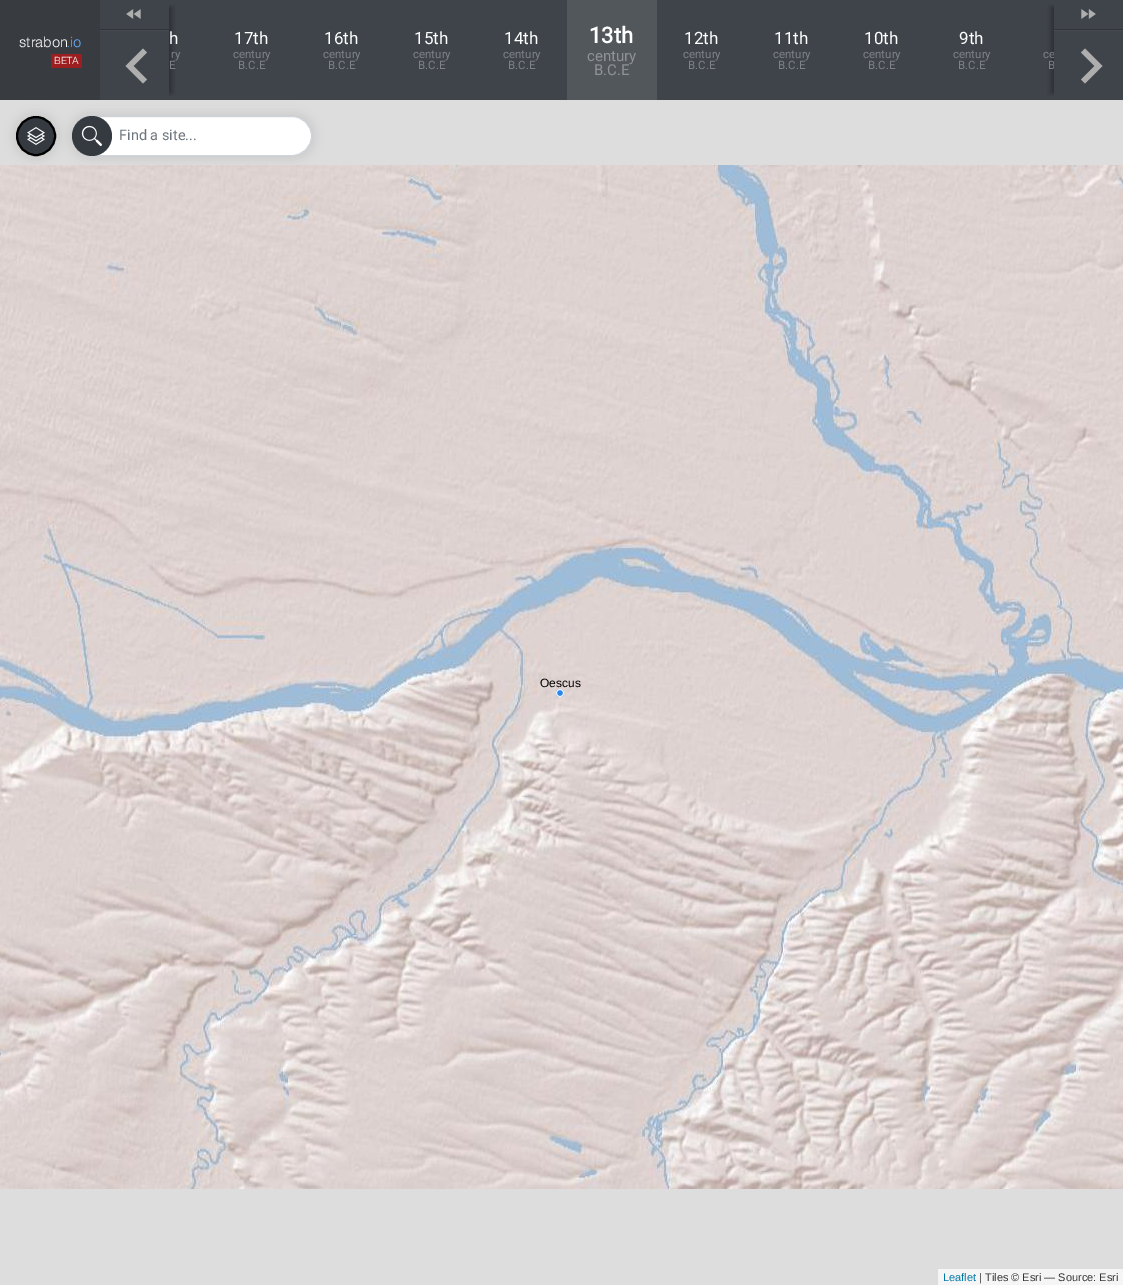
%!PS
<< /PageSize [1123 1285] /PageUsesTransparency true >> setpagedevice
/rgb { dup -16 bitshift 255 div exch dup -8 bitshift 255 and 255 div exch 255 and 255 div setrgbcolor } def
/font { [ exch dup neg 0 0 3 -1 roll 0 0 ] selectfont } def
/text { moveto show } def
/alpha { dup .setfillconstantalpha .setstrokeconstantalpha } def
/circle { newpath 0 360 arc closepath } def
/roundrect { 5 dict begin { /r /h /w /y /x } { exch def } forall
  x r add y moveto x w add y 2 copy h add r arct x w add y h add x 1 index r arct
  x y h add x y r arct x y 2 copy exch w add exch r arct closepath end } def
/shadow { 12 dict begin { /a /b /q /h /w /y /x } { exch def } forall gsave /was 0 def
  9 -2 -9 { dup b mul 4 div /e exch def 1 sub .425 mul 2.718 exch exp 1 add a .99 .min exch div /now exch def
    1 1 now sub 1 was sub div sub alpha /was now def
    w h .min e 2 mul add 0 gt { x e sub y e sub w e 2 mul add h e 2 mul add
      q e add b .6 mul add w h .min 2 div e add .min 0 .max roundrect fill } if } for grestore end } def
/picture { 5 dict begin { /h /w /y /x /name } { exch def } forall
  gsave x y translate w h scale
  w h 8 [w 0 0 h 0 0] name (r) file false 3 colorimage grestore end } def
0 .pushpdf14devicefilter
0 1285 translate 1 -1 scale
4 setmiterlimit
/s1 { /Almarai-Light 14.5 font 16#FFFFFF rgb } def
/s2 { /Almarai-Light 14.5 font 16#67B0FF rgb } def
/s3 { /Almarai-Light 10 font 16#FFFFFF rgb } def
/s4 { /Roboto-Regular 17 font 16#FFFFFF rgb } def
/s5 { /Roboto-Regular 11.5 font 16#7F8286 rgb } def
/s6 { /Roboto-Bold 22 font 16#FFFFFF rgb } def
/s7 { /Roboto-Regular 15 font 16#8F9295 rgb } def
/s8 { /Roboto-Regular 14.5 font 16#6C757D rgb } def
/s9 { /LiberationSans-Regular 12 font 16#000000 rgb } def
/s10 { /LiberationSans-Regular 11 font 16#0078A8 rgb } def
/s11 { /LiberationSans-Regular 11 font 16#333333 rgb } def
16#3F444A rgb
0 0 1123 1285 rectfill
16#383B3F rgb
0 0 100 100 rectfill
s1
(strabon) 19 47 text
s2
(.io) 67 47 text
16#9C1E20 rgb
51 54 31 14 rectfill
s3
(BETA) 54 64 text
gsave
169 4 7 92 rectclip
16#000000 rgb
117 7 55 86 0 2.5 0.29 shadow
grestore
16#31353A rgb
100 29 69 1 rectfill
(pic1.raw) 126 9 15 10 picture
16#474B51 rgb
100 30 69 1 rectfill
16#AEAEAE rgb
147 52.5 moveto 133.5 66 lineto 147 79.5 lineto 143 83.5 lineto 125.5 66 lineto 143 48.5 lineto closepath fill
s4
(h) 169 44 text
s5
(ry) 171 58 text
(E) 169 69 text
s4
(17th) 234 44 text
s5
(century) 233 58 text
(B.C.E) 238 69 text
s4
(16th) 324 44 text
s5
(century) 323 58 text
(B.C.E) 328 69 text
s4
(15th) 414 44 text
s5
(century) 413 58 text
(B.C.E) 418 69 text
s4
(14th) 504 44 text
s5
(century) 503 58 text
(B.C.E) 508 69 text
16#52575C rgb
567 0 90 100 rectfill
s6
(13th) 589 43 text
s7
(century) 587 61 text
(B.C.E) 594 75 text
s4
(12th) 684 44 text
s5
(century) 683 58 text
(B.C.E) 688 69 text
s4
(11th) 774 44 text
s5
(century) 773 58 text
(B.C.E) 778 69 text
s4
(10th) 864 44 text
s5
(century) 863 58 text
(B.C.E) 868 69 text
s4
(9th) 959 44 text
s5
(century) 953 58 text
(B.C.E) 958 69 text
gsave
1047 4 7 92 rectclip
16#000000 rgb
1051 7 55 86 0 2.5 0.29 shadow
grestore
gsave
169 0 885 100 rectclip
(ce) 1043 58 text
(B) 1048 69 text
grestore
16#31353A rgb
1054 29 69 1 rectfill
(pic2.raw) 1081 9 15 10 picture
16#474B51 rgb
1054 30 69 1 rectfill
16#AEAEAE rgb
1085 48.5 moveto 1102.5 66 lineto 1085 83.5 lineto 1081 79.5 lineto 1094.5 66 lineto 1081 52.5 lineto closepath fill
16#DDDDDD rgb
0 100 1123 1185 rectfill
(pic5.raw) 0 165 233 256 picture
16#000000 rgb
16 116 40 40 20 6 0.12 shadow
16#343A40 rgb
36 136 19 circle gsave fill grestore
16#000000 rgb
2 setlinewidth
stroke
(pic3.raw) 27 127 18 18 picture
(pic6.raw) 233 165 256 256 picture
72 116 240 40 20 6 0.12 shadow
16#FFFFFF rgb
72.5 116.5 239 39 19.5 roundrect gsave fill grestore
16#CED4DA rgb
1 setlinewidth
stroke
16#343A40 rgb
92 136 20 circle fill
(pic4.raw) 81 125 21 21 picture
s8
(Find a site...) 119 140 text
(pic7.raw) 489 165 256 256 picture
(pic8.raw) 745 165 256 256 picture
(pic9.raw) 1001 165 122 256 picture
(pic10.raw) 0 421 233 256 picture
(pic11.raw) 233 421 256 256 picture
(pic12.raw) 489 421 256 256 picture
(pic13.raw) 745 421 256 256 picture
(pic14.raw) 1001 421 122 256 picture
(pic15.raw) 0 677 233 256 picture
(pic16.raw) 233 677 256 256 picture
(pic17.raw) 489 677 256 256 picture
(pic18.raw) 745 677 256 256 picture
(pic19.raw) 1001 677 122 256 picture
(pic20.raw) 0 933 233 256 picture
(pic21.raw) 233 933 256 256 picture
(pic22.raw) 489 933 256 256 picture
(pic23.raw) 745 933 256 256 picture
(pic24.raw) 1001 933 122 256 picture
s9
(Oescus) 540 687 text
16#2D87E8 rgb
560 693 4 circle fill
0.9 alpha
16#FFFFFF rgb
560 693 3.5 circle stroke
1 alpha
16#F5F5F5 rgb
938 1269 185 16 rectfill
s10
(Leaflet) 943 1281 text
s11
(| Tiles © Esri — Source: Esri) 979 1281 text
.poppdf14devicefilter showpage
